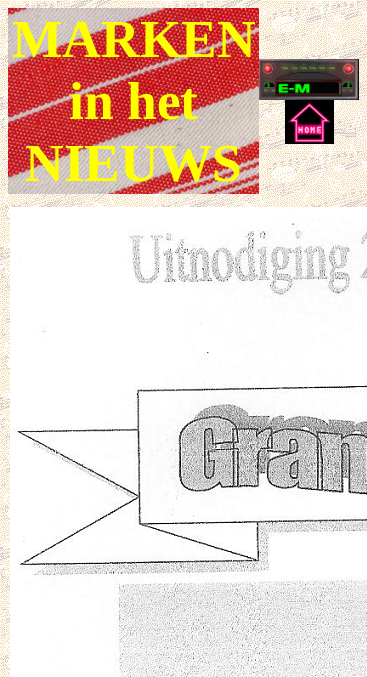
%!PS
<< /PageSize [367 677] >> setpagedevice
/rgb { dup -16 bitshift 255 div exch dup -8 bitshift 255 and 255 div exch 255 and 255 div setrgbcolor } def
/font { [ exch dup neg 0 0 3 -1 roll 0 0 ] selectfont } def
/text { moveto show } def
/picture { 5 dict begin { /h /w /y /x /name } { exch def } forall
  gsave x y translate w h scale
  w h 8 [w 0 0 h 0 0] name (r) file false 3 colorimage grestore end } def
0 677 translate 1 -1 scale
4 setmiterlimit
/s1 { /LiberationSerif-Bold 53.5 font 16#FFFF00 rgb } def
16#FFFFFF rgb
0 0 367 677 rectfill
(pic1.raw) 0 0 367 677 picture
(pic2.raw) 8 8 251 186 picture
s1
(MARKEN) 12 57 text
(in het) 69 119 text
(NIEUWS) 25 181 text
(pic3.raw) 259 59 100 41 picture
(pic4.raw) 285 100 49 44 picture
(pic5.raw) 10 207 357 470 picture
showpage
